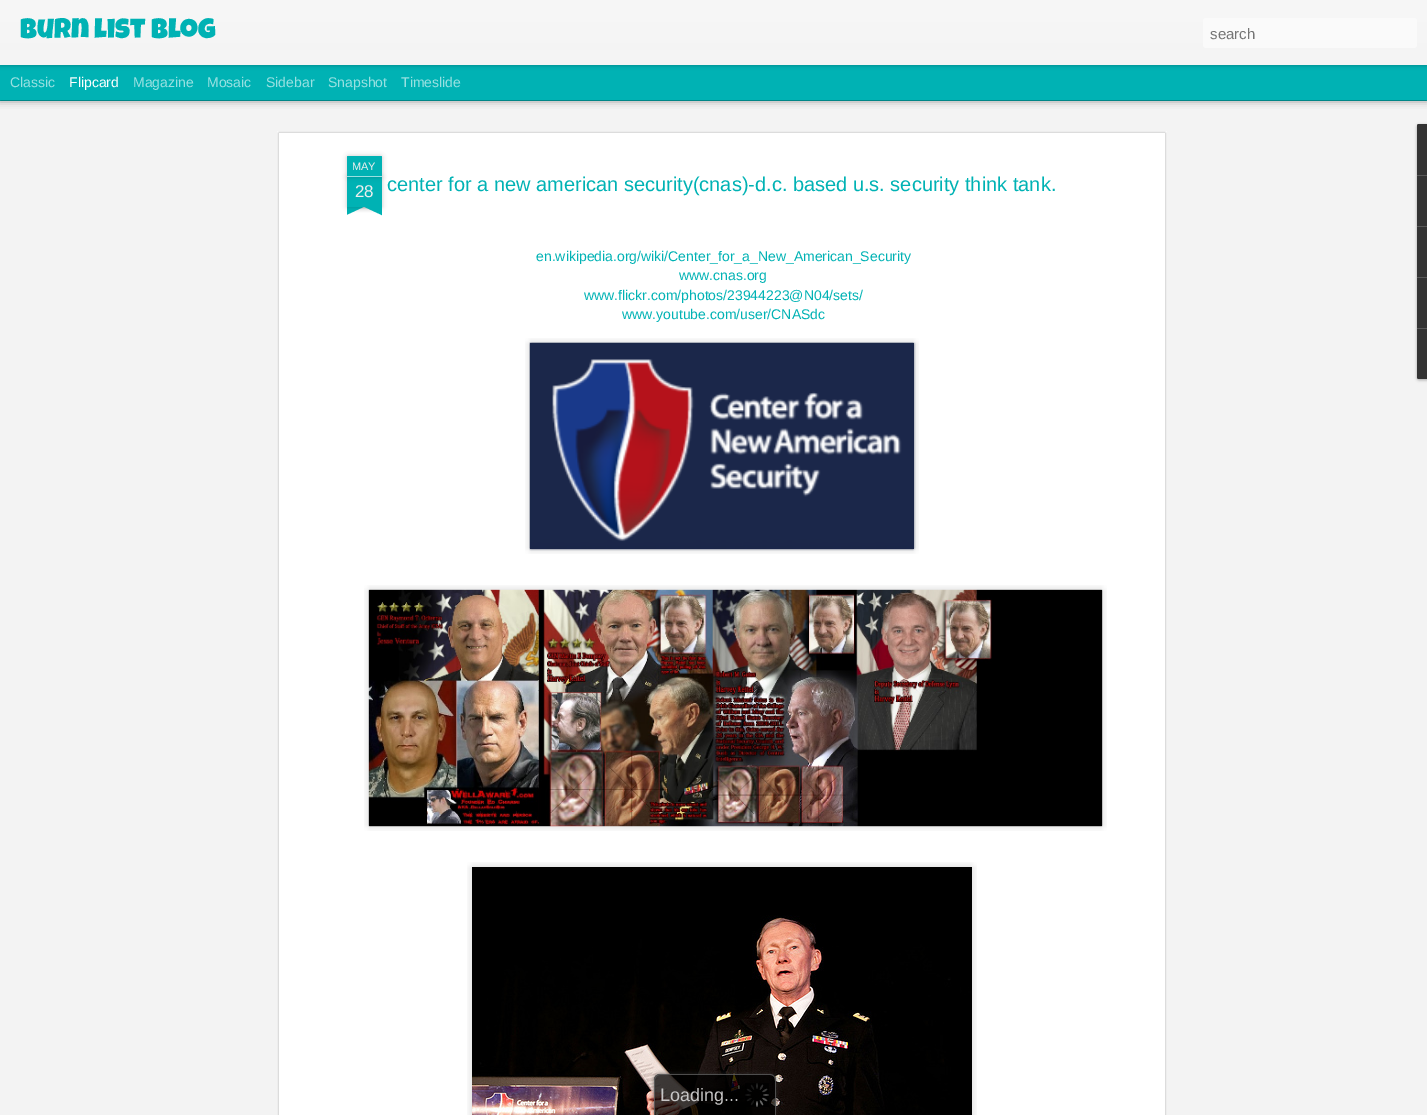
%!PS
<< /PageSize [1427 1115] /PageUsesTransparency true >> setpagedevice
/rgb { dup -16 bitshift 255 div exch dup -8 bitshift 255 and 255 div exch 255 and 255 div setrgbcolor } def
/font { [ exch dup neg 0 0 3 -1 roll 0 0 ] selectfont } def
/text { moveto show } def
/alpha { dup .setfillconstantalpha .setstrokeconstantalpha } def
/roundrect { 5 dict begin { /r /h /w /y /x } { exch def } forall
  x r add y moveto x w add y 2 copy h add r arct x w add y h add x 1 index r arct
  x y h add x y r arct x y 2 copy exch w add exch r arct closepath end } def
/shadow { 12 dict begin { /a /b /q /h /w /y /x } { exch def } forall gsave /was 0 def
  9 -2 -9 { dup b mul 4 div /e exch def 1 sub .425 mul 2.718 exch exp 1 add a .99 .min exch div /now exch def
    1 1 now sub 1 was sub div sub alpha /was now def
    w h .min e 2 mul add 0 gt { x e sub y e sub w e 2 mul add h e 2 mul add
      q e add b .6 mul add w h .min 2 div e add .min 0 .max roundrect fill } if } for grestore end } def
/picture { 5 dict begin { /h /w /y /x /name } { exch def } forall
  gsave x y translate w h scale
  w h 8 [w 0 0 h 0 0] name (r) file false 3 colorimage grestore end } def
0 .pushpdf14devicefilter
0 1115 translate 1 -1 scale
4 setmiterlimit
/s1 { /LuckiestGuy-Regular 28 font 16#00B2B4 rgb } def
/s2 { /LiberationSans-Regular 15 font 16#757575 rgb } def
/s3 { /LiberationSans-Regular 14 font 16#99E0E1 rgb } def
/s4 { /LiberationSans-Regular 14 font 16#FFFFFF rgb } def
/s5 { /LiberationSans-Regular 11 font 16#EEEEEE rgb } def
/s6 { /LiberationSans-Regular 17 font 16#EEEEEE rgb } def
/s7 { /LiberationSans-Regular 20 font 16#00B2B4 rgb } def
/s8 { /LiberationSans-Regular 14 font 16#00B2B4 rgb } def
/s9 { /LiberationSans-Regular 18 font 16#C7C6C6 rgb } def
/s10 { /LiberationSans-Regular 18 font 16#BFBFBF rgb } def
16#00B2B4 rgb
0 0 1427 1115 rectfill
16#F3F3F3 rgb
0 101 1427 1014 rectfill
16#000000 rgb
0 65 1427 35 0 4 0.5 shadow
16#00B2B4 rgb
0 65 1427 35 rectfill
16#000000 rgb
0 0 1427 65 0 2.5 0.3 shadow
gsave 0 0 moveto 1427 0 lineto 1427 65 lineto 0 65 lineto closepath clip newpath
<< /ShadingType 2 /ColorSpace /DeviceRGB /Coords [0 0 0 65] /Extend [true true] /Function << /FunctionType 2 /Domain [0 1] /C0 [0.969 0.969 0.969] /C1 [0.957 0.957 0.957] /N 1 >> >> shfill grestore
s1
(burn list blog) 20 38 text
16#FAFAFA rgb
1203 18 214 30 3 roundrect fill
s2
(search) 1210 39 text
s3
(Classic) 10 87 text
s4
(Flipcard) 69 87 text
s3
(Magazine) 133 87 text
(Mosaic) 207 87 text
(Sidebar) 266 87 text
(Snapshot) 328 87 text
(Timeslide) 401 87 text
16#FFFFFF rgb
277 131 890 984 rectfill
(pic1.raw) 277 131 890 984 picture
16#000000 rgb
347 177 35 30 0 2.5 0.2 shadow
16#00B2B4 rgb
347 177 35 30 rectfill
16#000000 rgb
347 156 35 21 1 2.5 0.2 shadow
16#00B2B4 rgb
348 156 moveto 381 156 lineto 381.5 156 382 156.5 382 157 curveto 382 177 lineto 347 177 lineto 347 157 lineto 347 156.5 347.5 156 348 156 curveto closepath fill
16#99E0E1 rgb
347 176 35 1 rectfill
s5
(MAY) 352 170 text
s6
(28) 355 197 text
gsave
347 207 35 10 rectclip
16#000000 rgb
338 197 50 10 0 2.5 0.2 shadow
grestore
gsave
347 207 35 10 rectclip
16#00B2B4 rgb
338 208 moveto 383 187 lineto 387 196 lineto 342 217 lineto closepath fill
grestore
gsave
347 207 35 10 rectclip
16#000000 rgb
341 197 50 10 0 2.5 0.2 shadow
grestore
gsave
347 207 35 10 rectclip
16#00B2B4 rgb
345 187 moveto 390 208 lineto 386 217 lineto 341 196 lineto closepath fill
grestore
s7
(center for a new american security\(cnas\)-d.c. based u.s. security think tank.) 387 191 text
s8
(en.wikipedia.org/wiki/Center_for_a_New_American_Security) 536 261 text
(www.cnas.org) 679 280 text
(www.flickr.com/photos/23944223@N04/sets/) 584 300 text
(www.youtube.com/user/CNASdc) 622 319 text
(pic2.raw) 525 338 394 216 picture
(pic3.raw) 529 342 387 209 picture
(pic4.raw) 364 585 743 246 picture
(pic5.raw) 368 589 735 238 picture
(pic6.raw) 467 862 510 253 picture
16#000000 rgb
1417 125 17 255 2 1.5 0.3 shadow
16#333333 rgb
1419 124 moveto 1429 124 lineto 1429 379 lineto 1419 379 lineto 1418 379 1417 378 1417 377 curveto 1417 126 lineto 1417 125 1418 124 1419 124 curveto closepath fill
1419 124 moveto 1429 124 lineto 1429 175 lineto 1417 175 lineto 1417 126 lineto 1417 125 1418 124 1419 124 curveto closepath fill
16#585858 rgb
1417 175 10 1 rectfill
1417 226 10 1 rectfill
1417 277 10 1 rectfill
16#333333 rgb
1417 328 moveto 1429 328 lineto 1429 379 lineto 1419 379 lineto 1418 379 1417 378 1417 377 curveto closepath fill
16#585858 rgb
1417 328 10 1 rectfill
gsave
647 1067 moveto 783 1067 lineto 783 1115 lineto 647 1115 lineto closepath 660 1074 moveto 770 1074 lineto 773.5 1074 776 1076.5 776 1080 curveto 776 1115 lineto 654 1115 lineto 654 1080 lineto 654 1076.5 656.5 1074 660 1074 curveto closepath eoclip newpath
16#333333 rgb
654 1074 122 41 6 2 0.75 shadow
grestore
0.75 alpha
16#000000 rgb
660 1074 moveto 770 1074 lineto 773.5 1074 776 1076.5 776 1080 curveto 776 1115 lineto 654 1115 lineto 654 1080 lineto 654 1076.5 656.5 1074 660 1074 curveto closepath fill
16#666666 rgb
660 1074 moveto 770 1074 lineto 773 1074 776 1077 776 1080 curveto 776 1115 lineto 654 1115 lineto 654 1080 lineto 654 1077 657 1074 660 1074 curveto closepath 660 1075 moveto 770 1075 lineto 773 1075 775 1077 775 1080 curveto 775 1115 lineto 655 1115 lineto 655 1080 lineto 655 1077 657 1075 660 1075 curveto closepath eofill
1 alpha
(pic7.raw) 745 1083 24 24 picture
s9
(Loading) 660 1101 text
s10
(...) 724 1101 text
.poppdf14devicefilter showpage
